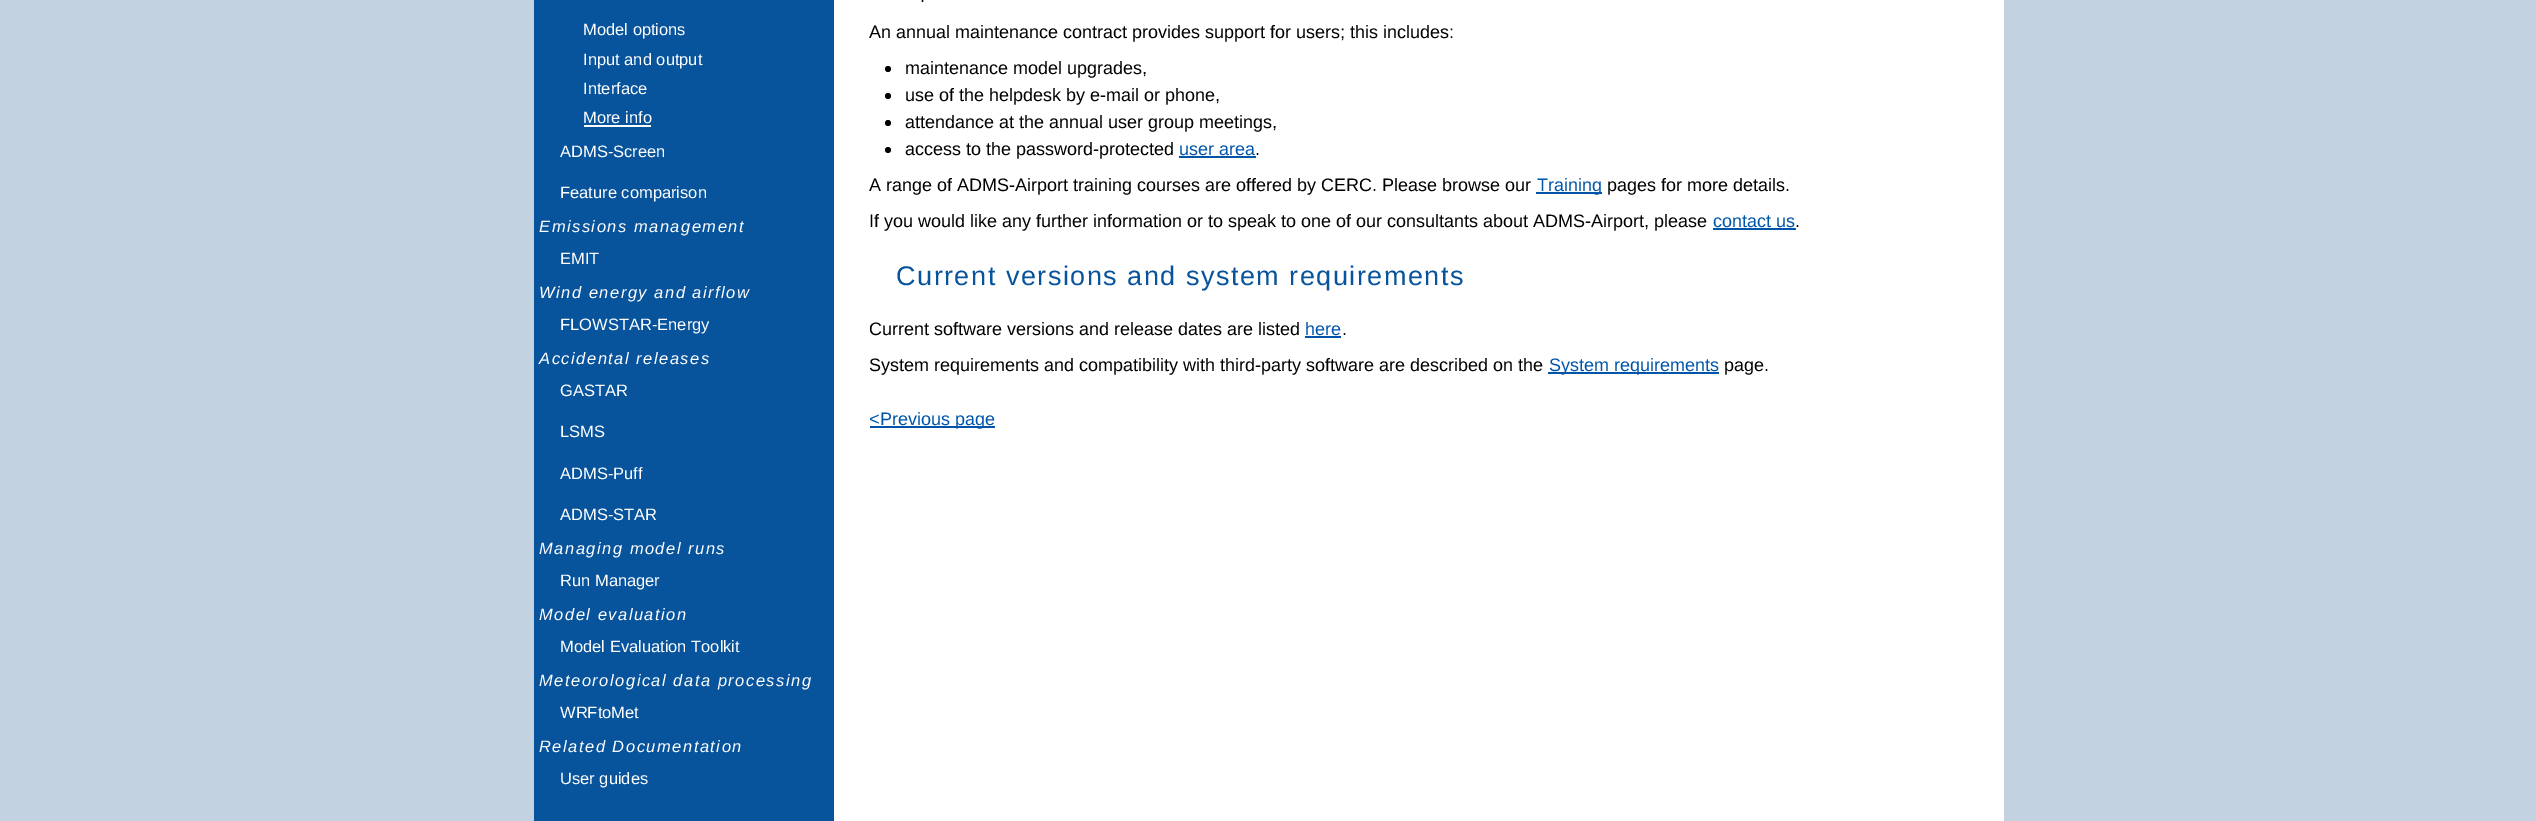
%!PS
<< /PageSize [2536 821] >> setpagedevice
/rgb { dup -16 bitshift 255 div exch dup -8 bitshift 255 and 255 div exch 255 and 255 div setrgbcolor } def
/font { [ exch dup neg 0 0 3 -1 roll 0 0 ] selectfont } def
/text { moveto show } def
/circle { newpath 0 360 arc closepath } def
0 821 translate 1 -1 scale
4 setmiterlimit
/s1 { /LiberationSans-Regular 16.5 font 16#FFFFFF rgb } def
/s2 { /LiberationSans-Regular 18 font 16#000000 rgb } def
/s3 { /LiberationSans-Regular 18 font 16#0055AA rgb } def
16#C2D2E1 rgb
0 0 2536 821 rectfill
16#FFFFFF rgb
834 0 1170 821 rectfill
16#07539C rgb
534 0 300 821 rectfill
s1
(Model options) 583 35 text
(Input and output) 583 65 text
(Interface) 583 94 text
(More info) 583 123 text
584 125 67 2 rectfill
(ADMS-Screen) 560 157 text
(Feature comparison) 560 198 text
/LiberationSans-Italic 16.5 font
539 232 moveto 1.5 0 (Emissions management) ashow
s1
(EMIT) 560 264 text
/LiberationSans-Italic 16.5 font
539 298 moveto 1.5 0 (Wind energy and airflow) ashow
s1
(FLOWSTAR-Energy) 560 330 text
/LiberationSans-Italic 16.5 font
539 364 moveto 1.5 0 (Accidental releases) ashow
s1
(GASTAR) 560 396 text
(LSMS) 560 437 text
(ADMS-Puff) 560 479 text
(ADMS-STAR) 560 520 text
/LiberationSans-Italic 16.5 font
539 554 moveto 1.5 0 (Managing model runs) ashow
s1
(Run Manager) 560 586 text
/LiberationSans-Italic 16.5 font
539 620 moveto 1.5 0 (Model evaluation) ashow
s1
(Model Evaluation Toolkit) 560 652 text
/LiberationSans-Italic 16.5 font
539 686 moveto 1.5 0 (Meteorological data processing) ashow
s1
(WRFtoMet) 560 718 text
/LiberationSans-Italic 16.5 font
539 752 moveto 1.5 0 (Related Documentation) ashow
s1
(User guides) 560 784 text
s2
(.) 920 2 text
(An annual maintenance contract provides support for users; this includes:) 869 38 text
888 69 3 circle fill
(maintenance model upgrades,) 905 74 text
888 96 3 circle fill
(use of the helpdesk by e-mail or phone,) 905 101 text
888 123 3 circle fill
(attendance at the annual user group meetings,) 905 128 text
888 150 3 circle fill
(access to the password-protected) 905 155 text
s3
(user area) 1179 155 text
1179 156 77 2 rectfill
s2
(.) 1255 155 text
(A range of ADMS-Airport training courses are offered by CERC. Please browse our) 869 191 text
16#0055AA rgb
1536 192 66 2 rectfill
(Training) 1537 191 text
s2
(pages for more details.) 1607 191 text
(If you would like any further information or to speak to one of our consultants about ADMS-Airport, please) 869 227 text
s3
(contact us) 1713 227 text
1713 228 83 2 rectfill
s2
(.) 1795 227 text
/LiberationSans-Regular 27 font
16#07539C rgb
896 285 moveto 1.5 0 (Current versions and system requirements) ashow
s2
(Current software versions and release dates are listed) 869 335 text
s3
(here) 1305 335 text
1305 336 36 2 rectfill
s2
(.) 1342 335 text
(System requirements and compatibility with third-party software are described on the) 869 371 text
16#0055AA rgb
1548 372 171 2 rectfill
(System requirements) 1549 371 text
s2
(page.) 1724 371 text
16#0055AA rgb
870 426 125 2 rectfill
(<Previous page) 869 425 text
showpage
